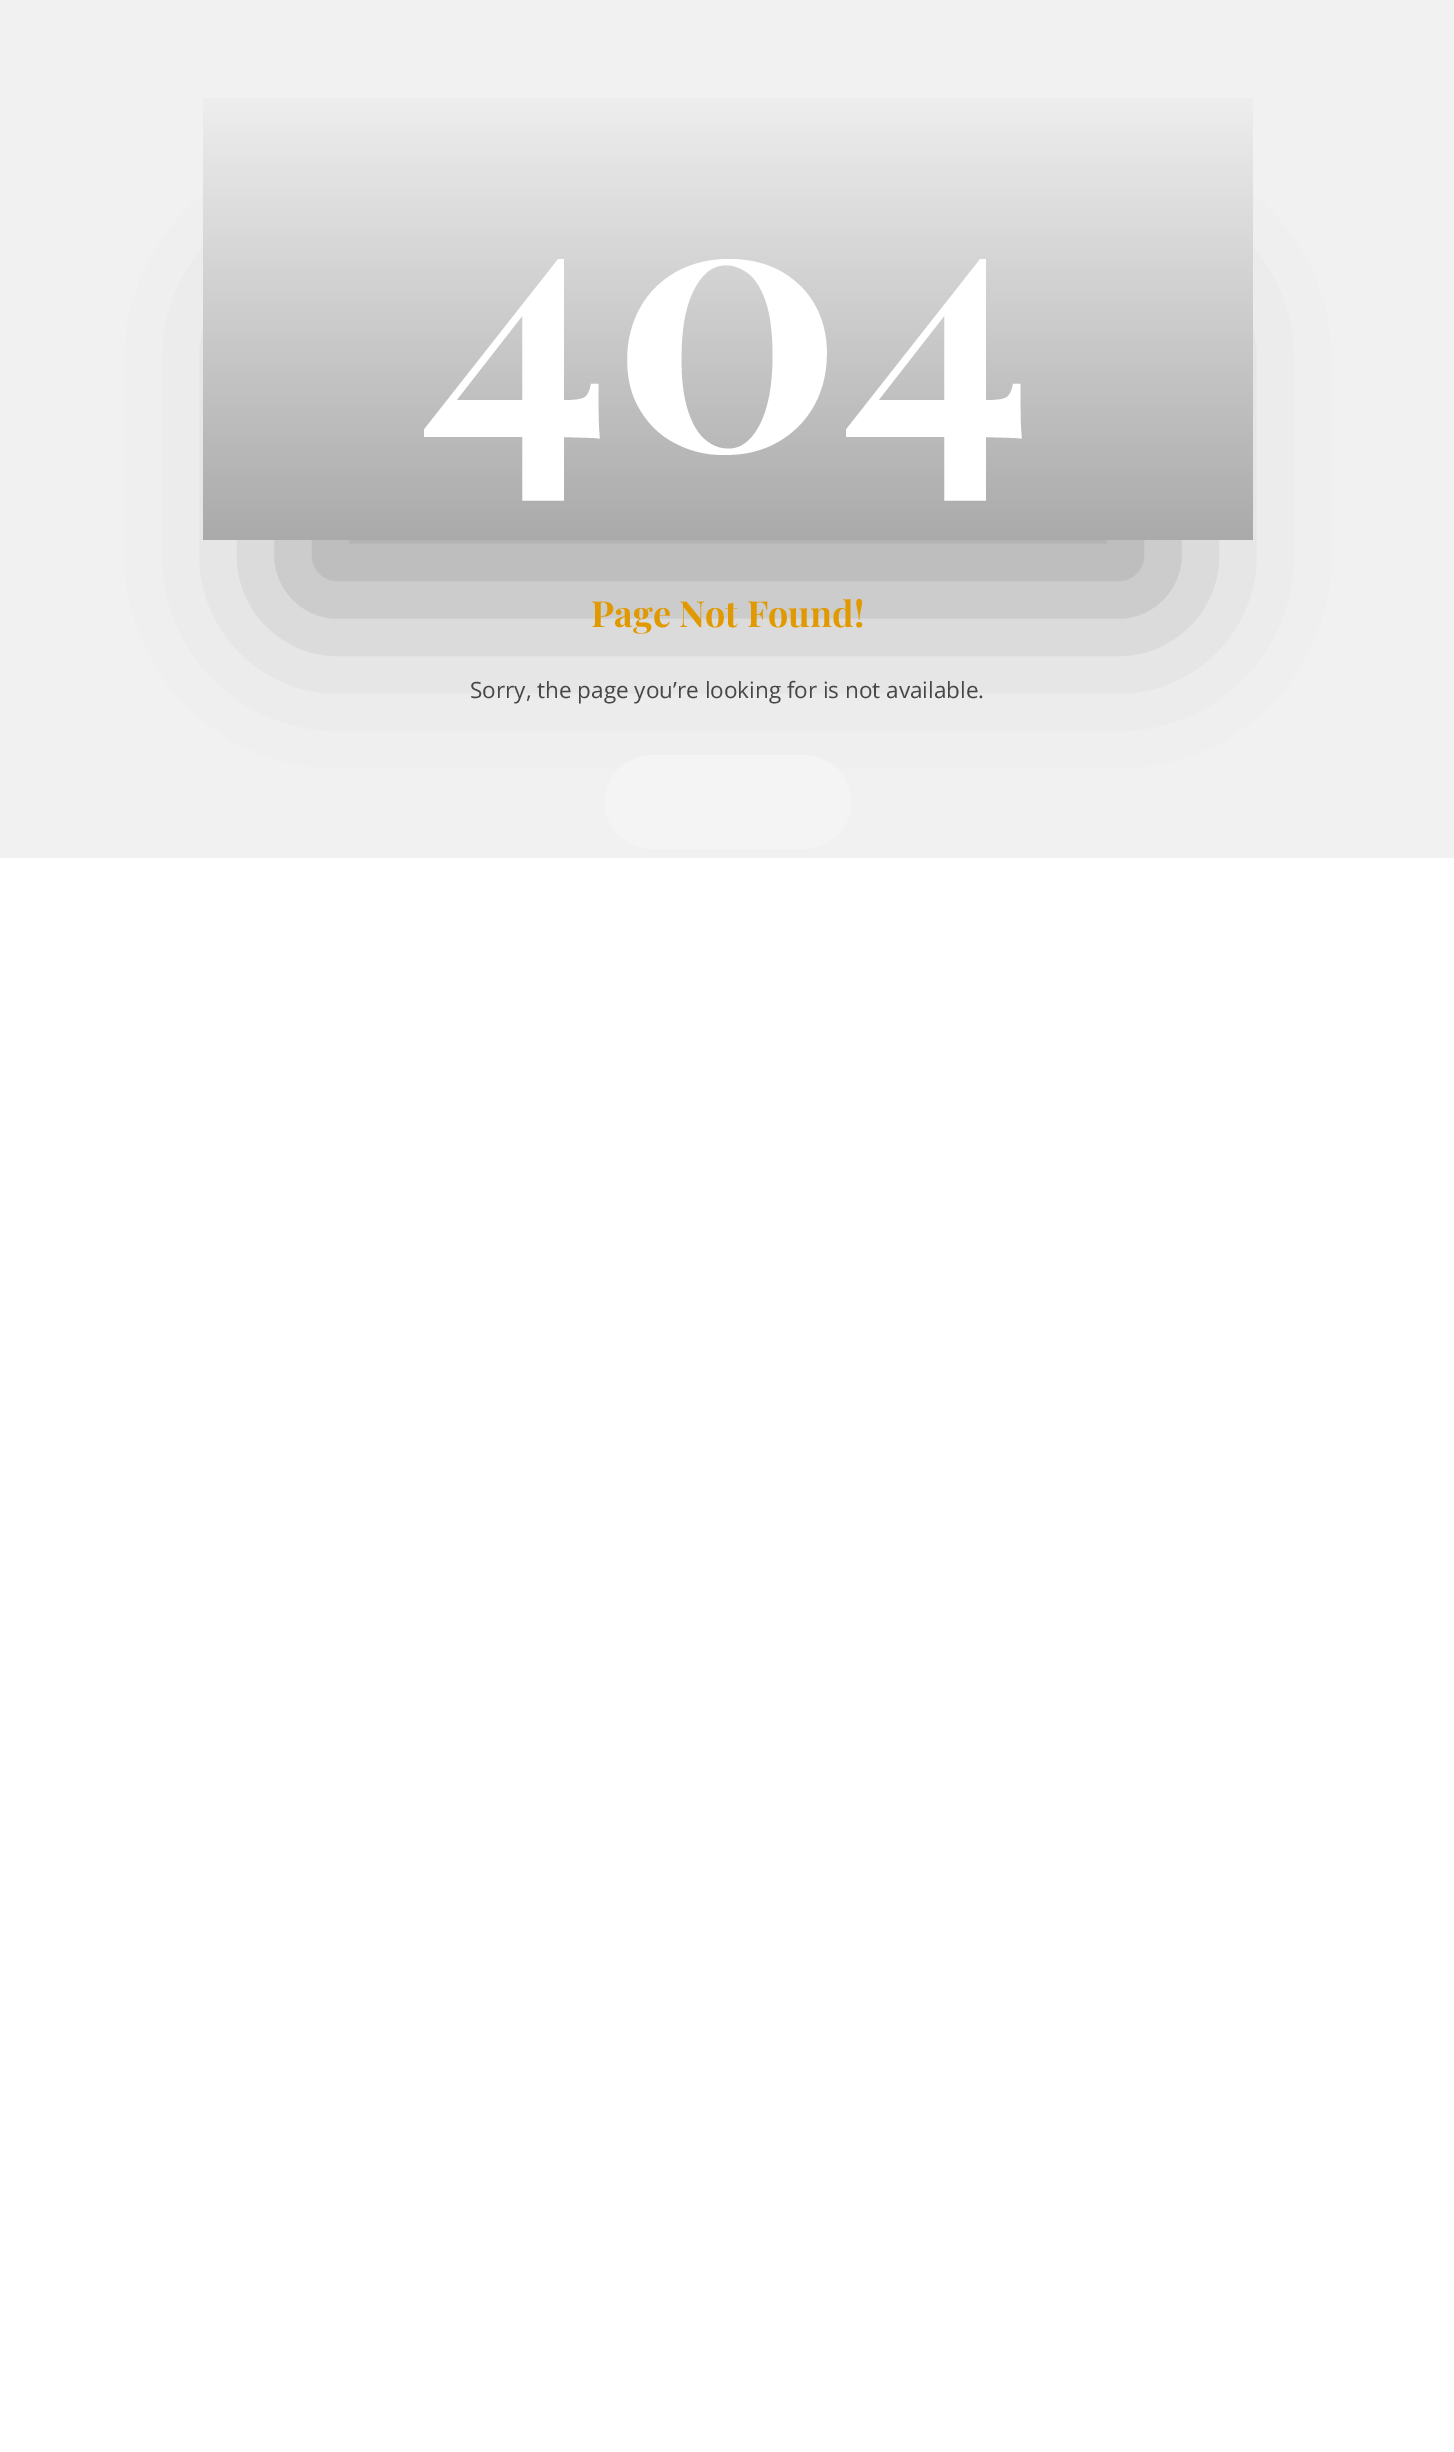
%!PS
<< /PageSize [1454 2452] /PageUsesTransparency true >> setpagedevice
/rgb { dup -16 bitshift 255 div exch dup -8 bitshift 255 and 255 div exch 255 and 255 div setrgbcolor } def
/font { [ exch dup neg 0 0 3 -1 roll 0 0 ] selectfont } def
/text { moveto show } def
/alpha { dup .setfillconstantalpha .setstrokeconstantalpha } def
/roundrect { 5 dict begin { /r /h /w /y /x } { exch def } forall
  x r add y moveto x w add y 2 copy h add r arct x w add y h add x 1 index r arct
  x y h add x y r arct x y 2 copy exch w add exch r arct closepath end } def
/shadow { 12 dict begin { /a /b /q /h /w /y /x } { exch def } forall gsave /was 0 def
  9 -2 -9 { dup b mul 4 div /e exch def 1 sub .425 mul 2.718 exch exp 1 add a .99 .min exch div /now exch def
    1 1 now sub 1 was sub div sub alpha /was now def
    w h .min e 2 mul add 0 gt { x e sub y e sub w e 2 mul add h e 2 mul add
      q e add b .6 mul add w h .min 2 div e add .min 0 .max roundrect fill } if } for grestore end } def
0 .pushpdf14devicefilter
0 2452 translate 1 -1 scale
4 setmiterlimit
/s1 { /PlayfairDisplay-Bold 360 font 16#FFFFFF rgb } def
/s2 { /PlayfairDisplay-Bold 36 font 16#E09900 rgb } def
/s3 { /OpenSans-Regular 22.5 font 16#464646 rgb } def
16#FFFFFF rgb
0 0 1454 2452 rectfill
16#F1F1F1 rgb
0 0 1454 858 rectfill
16#000000 rgb
293 315 870 285 0 75 0.3 shadow
gsave 203 98 moveto 1253 98 lineto 1253 540 lineto 203 540 lineto closepath clip newpath
<< /ShadingType 2 /ColorSpace /DeviceRGB /Coords [728 75 728 540] /Extend [true true] /Function << /FunctionType 2 /Domain [0 1] /C0 [0.949 0.949 0.949] /C1 [0.667 0.667 0.667] /N 1 >> >> shfill grestore
s1
(404) 421 450 text
s2
(Page Not Found!) 591 627 text
s3
(Sorry, the page you’re looking for is not available.) 470 698 text
16#F4F4F4 rgb
605 755 246 94 47 roundrect fill
.poppdf14devicefilter showpage
